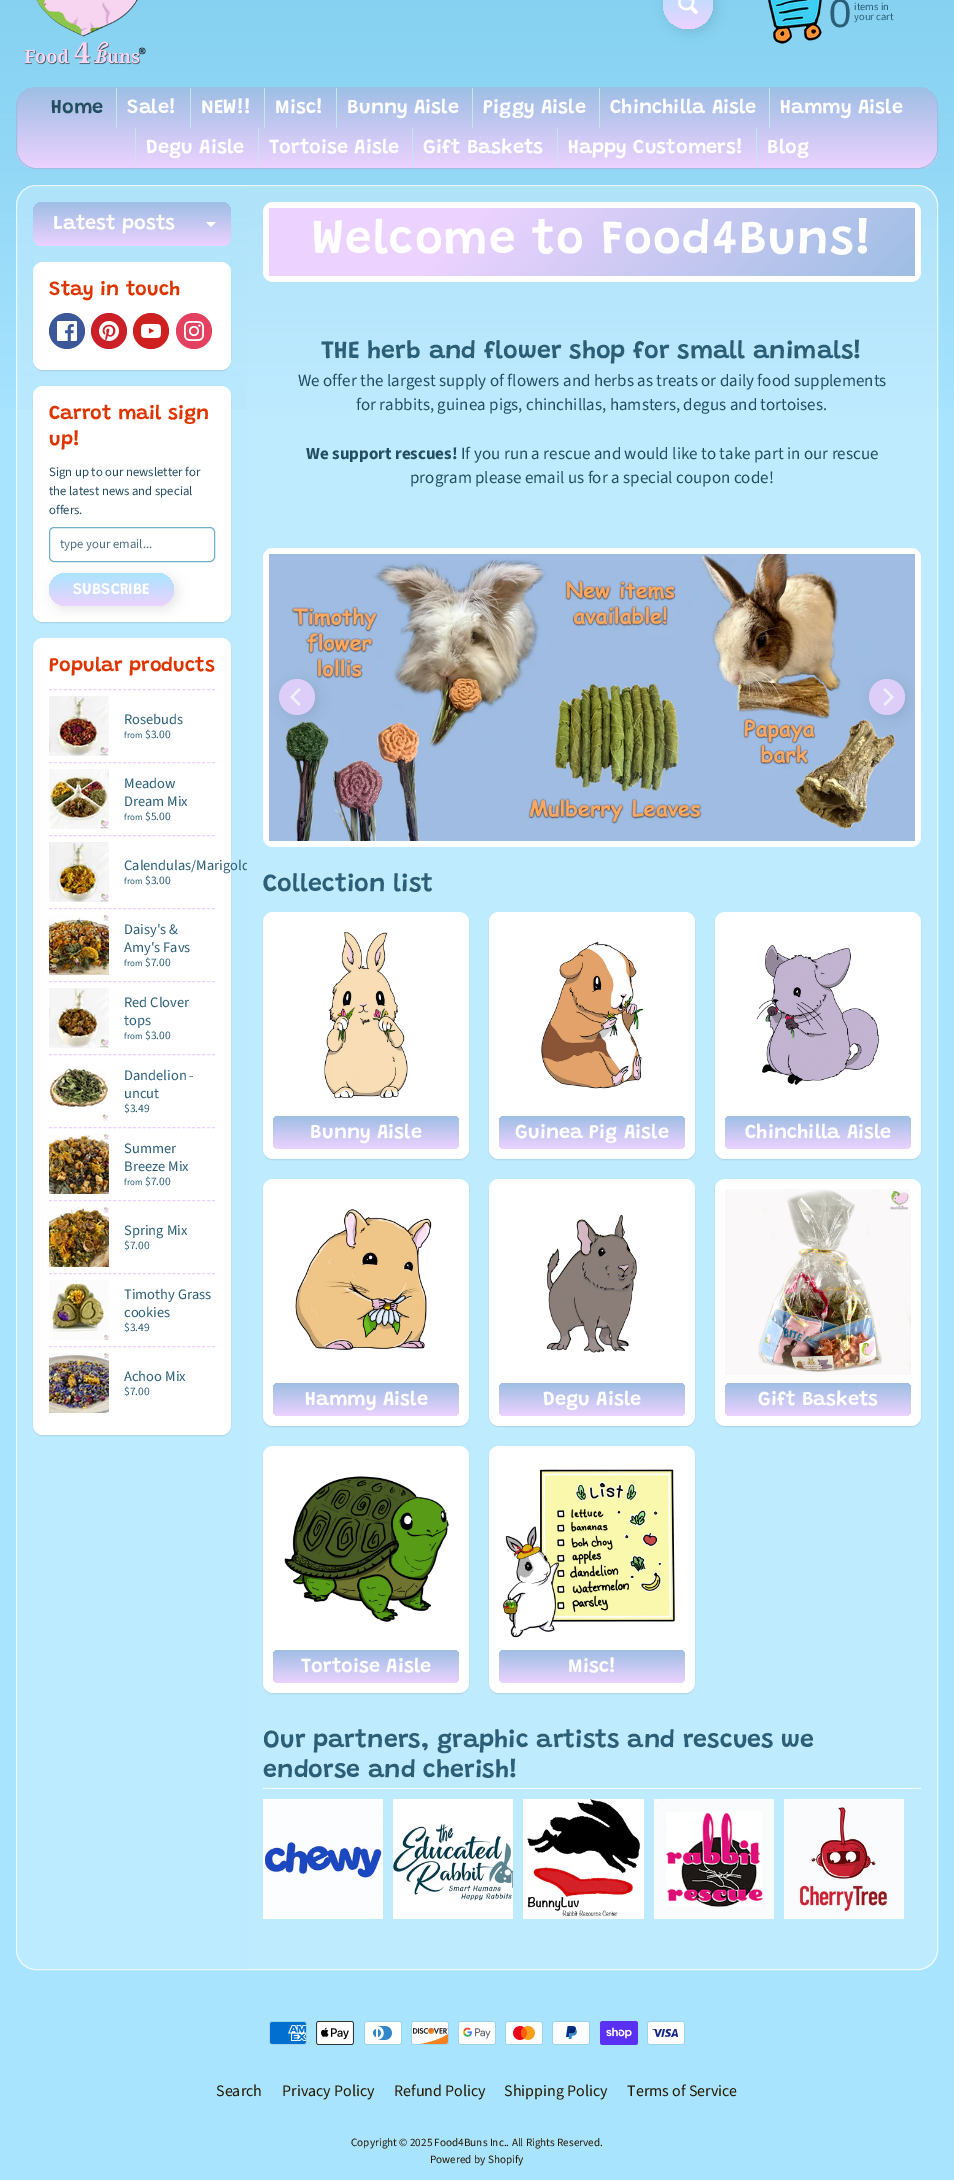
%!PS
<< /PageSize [954 2180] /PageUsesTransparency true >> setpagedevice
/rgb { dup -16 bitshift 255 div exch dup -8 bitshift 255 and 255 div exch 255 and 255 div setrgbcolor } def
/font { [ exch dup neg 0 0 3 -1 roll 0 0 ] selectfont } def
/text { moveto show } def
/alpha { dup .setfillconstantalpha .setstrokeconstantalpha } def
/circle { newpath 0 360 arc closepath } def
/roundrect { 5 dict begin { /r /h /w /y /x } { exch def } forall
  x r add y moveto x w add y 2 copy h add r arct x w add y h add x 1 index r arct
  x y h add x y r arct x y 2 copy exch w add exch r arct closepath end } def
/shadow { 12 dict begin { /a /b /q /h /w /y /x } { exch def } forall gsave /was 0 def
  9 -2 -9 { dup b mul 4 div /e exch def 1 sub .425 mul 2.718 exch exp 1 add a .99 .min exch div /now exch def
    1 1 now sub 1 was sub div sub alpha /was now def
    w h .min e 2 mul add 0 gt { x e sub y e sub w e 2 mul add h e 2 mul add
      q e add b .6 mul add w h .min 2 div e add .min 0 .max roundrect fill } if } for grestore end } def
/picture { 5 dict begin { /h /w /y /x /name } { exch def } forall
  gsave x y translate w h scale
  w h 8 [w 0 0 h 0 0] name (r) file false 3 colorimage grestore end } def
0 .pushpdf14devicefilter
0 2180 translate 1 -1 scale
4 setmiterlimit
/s1 { /LiberationSans-Regular 40 font 16#2B5F77 rgb } def
/s2 { /SourceSansPro-Regular 10.5 font 16#2B5F77 rgb } def
/s3 { /Grandstander-SemiBold 20 font 16#234D61 rgb } def
/s4 { /Grandstander-SemiBold 20 font 16#FFFFFF rgb } def
/s5 { /Grandstander-SemiBold 20 font 16#DE3500 rgb } def
/s6 { /SourceSansPro-Regular 12.75 font 16#234D61 rgb } def
/s7 { /SourceSansPro-Regular 12.75 font 16#4F7181 rgb } def
/s8 { /Grandstander-SemiBold 16 font 16#FFFFFF rgb } def
/s9 { /SourceSansPro-Regular 14.5 font 16#2B5F77 rgb } def
/s10 { /SourceSansPro-Regular 9 font 16#2B5F77 rgb } def
/s11 { /SourceSansPro-Regular 11.5 font 16#2B5F77 rgb } def
/s12 { /Grandstander-SemiBold 25 font 16#2B5F77 rgb } def
/s13 { /SourceSansPro-Regular 17 font 16#234D61 rgb } def
/s14 { /SourceSansPro-Bold 17 font 16#234D61 rgb } def
/s15 { /SourceSansPro-Regular 16 font 16#251800 rgb } def
/s16 { /SourceSansPro-Regular 11.2 font 16#251800 rgb } def
16#A9E4FF rgb
0 0 954 2180 rectfill
(pic1.raw) 0 0 954 409 picture
(pic2.raw) 24 0 122 65 picture
16#000000 rgb
666 -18 50 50 25 6 0.1 shadow
gsave 688 4 25 circle clip newpath
<< /ShadingType 2 /ColorSpace /DeviceRGB /Coords [688 -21 688 29] /Extend [true true] /Function << /FunctionType 2 /Domain [0 1] /C0 [0.663 0.894 1] /C1 [0.925 0.824 1] /N 1 >> >> shfill grestore
(pic3.raw) 678 0 20 14 picture
(pic4.raw) 768 0 54 44 picture
s1
(0) 829 27 text
s2
(items in) 854 10 text
(your cart) 854 20 text
gsave
16 87 922 82 20 roundrect clip newpath
gsave 16 88 moveto 938 88 lineto 938 168 lineto 16 168 lineto closepath clip newpath
<< /ShadingType 2 /ColorSpace /DeviceRGB /Coords [477 88 477 168] /Extend [true true] /Function << /FunctionType 2 /Domain [0 1] /C0 [0.62 0.745 0.894] /C1 [0.925 0.824 1] /N 1 >> >> shfill grestore
grestore
16#9EBEE4 rgb
16.5 87.5 921 81 19.5 roundrect stroke
s3
(Home) 51 113 text
16#C3E7EA rgb
116 88 1 40 rectfill
s4
(Sale!) 127 113 text
16#C3E7EA rgb
190 88 1 40 rectfill
s4
(NEW!!) 201 113 text
16#C3E7EA rgb
264 88 1 40 rectfill
s4
(Misc!) 275 113 text
16#C3E7EA rgb
336 88 1 40 rectfill
s4
(Bunny Aisle) 347 113 text
16#C3E7EA rgb
472 88 1 40 rectfill
s4
(Piggy Aisle) 483 113 text
16#C3E7EA rgb
599 88 1 40 rectfill
s4
(Chinchilla Aisle) 610 113 text
16#C3E7EA rgb
769 88 1 40 rectfill
s4
(Hammy Aisle) 780 113 text
16#C3E7EA rgb
135 128 1 40 rectfill
s4
(Degu Aisle) 146 153 text
16#C3E7EA rgb
258 128 1 40 rectfill
s4
(Tortoise Aisle) 269 153 text
16#C3E7EA rgb
412 128 1 40 rectfill
s4
(Gift Baskets) 423 153 text
16#C3E7EA rgb
557 128 1 40 rectfill
s4
(Happy Customers!) 568 153 text
16#C3E7EA rgb
756 128 1 40 rectfill
s4
(Blog) 767 153 text
0.25 alpha
16 185 922 1785 20 roundrect fill
0.7 alpha
16.5 185.5 921 1784 19.5 roundrect stroke
0.15 alpha
16#A9E4FF rgb
36 186 moveto 247 186 lineto 247 1969 lineto 36 1969 lineto 25.5 1969 17 1960.5 17 1950 curveto 17 205 lineto 17 194.5 25.5 186 36 186 curveto closepath fill
1 alpha
gsave 33 202 198 44 10 roundrect clip newpath
<< /ShadingType 2 /ColorSpace /DeviceRGB /Coords [132 202 132 246] /Extend [true true] /Function << /FunctionType 2 /Domain [0 1] /C0 [0.62 0.745 0.894] /C1 [0.925 0.824 1] /N 1 >> >> shfill grestore
s4
(Latest posts) 53 229 text
206 222 moveto 216 222 lineto 211 227 lineto closepath fill
16#000000 rgb
33 263 198 108 10 0.5 0.1 shadow
16#FFFFFF rgb
33 262 198 108 10 roundrect fill
s5
(Stay in touch) 49 295 text
16#3B5998 rgb
67 331 18 circle fill
(pic5.raw) 57 321 20 20 picture
16#CB2027 rgb
109 331 18 circle fill
(pic6.raw) 99 321 20 20 picture
16#CD201F rgb
151 331 18 circle fill
(pic7.raw) 141 323 20 15 picture
16#E4405F rgb
194 331 18 circle fill
(pic8.raw) 184 321 20 20 picture
16#000000 rgb
33 387 198 236 10 0.5 0.1 shadow
16#FFFFFF rgb
33 386 198 236 10 roundrect fill
s5
(Carrot mail sign) 49 419 text
(up!) 49 445 text
s6
(Sign up to our newsletter for) 49 476 text
(the latest news and special) 49 495 text
(offers.) 49 514 text
16#70B1CC rgb
49.5 527.5 165 34 4.5 roundrect stroke
s7
(type your email...) 60 548 text
16#000000 rgb
52 576 125 33 16.5 6 0.1 shadow
gsave 49 573 125 33 16.5 roundrect clip newpath
<< /ShadingType 2 /ColorSpace /DeviceRGB /Coords [112 573 112 606] /Extend [true true] /Function << /FunctionType 2 /Domain [0 1] /C0 [0.663 0.894 1] /C1 [0.925 0.824 1] /N 1 >> >> shfill grestore
s8
(SUBSCRIBE) 73 594 text
16#000000 rgb
33 639 198 797 10 0.5 0.1 shadow
16#FFFFFF rgb
33 638 198 797 10 roundrect fill
s5
(Popular products) 49 671 text
16#ECD2FF rgb
[3 1.94] 0 setdash
49 689.5 moveto 215 689.5 lineto stroke
(pic9.raw) 49 696 60 60 picture
s9
(Rosebuds) 124 724 text
s10
(from) 124 738 text
s11
($3.00) 145 738 text
16#ECD2FF rgb
49 762.5 moveto 215 762.5 lineto stroke
(pic10.raw) 49 769 60 60 picture
s9
(Meadow) 124 788 text
(Dream Mix) 124 806 text
s10
(from) 124 820 text
s11
($5.00) 145 820 text
16#ECD2FF rgb
49 835.5 moveto 215 835.5 lineto stroke
(pic11.raw) 49 842 60 60 picture
gsave
17 186 230 1783 rectclip
s9
(Calendulas/Marigold) 124 870 text
grestore
s10
(from) 124 884 text
s11
($3.00) 145 884 text
16#ECD2FF rgb
49 908.5 moveto 215 908.5 lineto stroke
(pic12.raw) 49 915 60 60 picture
s9
(Daisy's &) 124 934 text
(Amy's Favs) 124 952 text
s10
(from) 124 966 text
s11
($7.00) 145 966 text
16#ECD2FF rgb
49 981.5 moveto 215 981.5 lineto stroke
(pic13.raw) 49 988 60 60 picture
s9
(Red Clover) 124 1007 text
(tops) 124 1025 text
s10
(from) 124 1039 text
s11
($3.00) 145 1039 text
16#ECD2FF rgb
49 1054.5 moveto 215 1054.5 lineto stroke
(pic14.raw) 49 1067 60 54 picture
s9
(Dandelion -) 124 1080 text
(uncut) 124 1098 text
s11
($3.49) 124 1112 text
16#ECD2FF rgb
49 1127.5 moveto 215 1127.5 lineto stroke
(pic15.raw) 49 1134 60 60 picture
s9
(Summer) 124 1153 text
(Breeze Mix) 124 1171 text
s10
(from) 124 1185 text
s11
($7.00) 145 1185 text
16#ECD2FF rgb
49 1200.5 moveto 215 1200.5 lineto stroke
(pic16.raw) 49 1207 60 60 picture
s9
(Spring Mix) 124 1235 text
s11
($7.00) 124 1249 text
16#ECD2FF rgb
49 1273.5 moveto 215 1273.5 lineto stroke
(pic17.raw) 49 1280 60 60 picture
s9
(Timothy Grass) 124 1299 text
(cookies) 124 1317 text
s11
($3.49) 124 1331 text
16#ECD2FF rgb
49 1346.5 moveto 215 1346.5 lineto stroke
(pic18.raw) 49 1353 60 60 picture
s9
(Achoo Mix) 124 1381 text
s11
($7.00) 124 1395 text
16#FFFFFF rgb
263 202 658 80 10 roundrect fill
gsave 269 208 moveto 915 208 lineto 915 276 lineto 269 276 lineto closepath clip newpath
<< /ShadingType 2 /ColorSpace /DeviceRGB /Coords [414 64 771 421] /Extend [true true] /Function << /FunctionType 3 /Domain [0 1] /Functions [<< /FunctionType 2 /Domain [0 1] /C0 [0.925 0.824 1] /C1 [0.925 0.824 1] /N 1 >> << /FunctionType 2 /Domain [0 1] /C0 [0.925 0.824 1] /C1 [0.62 0.745 0.894] /N 1 >>] /Bounds [0.3] /Encode [0 1 0 1] >> >> shfill grestore
/Grandstander-SemiBold 47.75 font
312 253 moveto 1 0 (Welcome to Food4Buns!) ashow
s12
(THE herb and flower shop for small animals!) 321 358 text
s13
(We offer the largest supply of flowers and herbs as treats or daily food supplements) 298 386 text
(for rabbits, guinea pigs, chinchillas, hamsters, degus and tortoises.) 356 410 text
s14
(We support rescues!) 306 459 text
s13
(If you run a rescue and would like to take part in our rescue) 461 459 text
(program please email us for a special coupon code!) 410 483 text
16#FFFFFF rgb
263 548 658 299 10 roundrect fill
(pic19.raw) 269 554 646 287 picture
16#000000 rgb
282 682 36 36 18 6 0.08 shadow
16#DDCEF9 rgb
297 697 18 circle fill
16#ECF2F9 rgb
290 697 moveto 299 706 lineto 300.5 704 lineto 293.5 697 lineto 300.5 690 lineto 299 688 lineto closepath fill
16#000000 rgb
872 682 36 36 18 6 0.08 shadow
16#DDCEF9 rgb
887 697 18 circle fill
16#ECF2F9 rgb
894 697 moveto 885 688 lineto 883.5 690 lineto 890.5 697 lineto 883.5 704 lineto 885 706 lineto closepath fill
s12
(Collection list) 263 891 text
16#000000 rgb
263 913 206 247 10 0.5 0.1 shadow
16#FFFFFF rgb
263 912 206 247 10 roundrect fill
(pic20.raw) 324 931 84 167 picture
gsave 273 1116 186 33 6 roundrect clip newpath
<< /ShadingType 2 /ColorSpace /DeviceRGB /Coords [366 1116 366 1149] /Extend [true true] /Function << /FunctionType 2 /Domain [0 1] /C0 [0.62 0.745 0.894] /C1 [0.925 0.824 1] /N 1 >> >> shfill grestore
s4
(Bunny Aisle) 310 1138 text
16#000000 rgb
489 913 206 247 10 0.5 0.1 shadow
16#FFFFFF rgb
489 912 206 247 10 roundrect fill
(pic21.raw) 541 941 103 148 picture
gsave 499 1116 186 33 6 roundrect clip newpath
<< /ShadingType 2 /ColorSpace /DeviceRGB /Coords [592 1116 592 1149] /Extend [true true] /Function << /FunctionType 2 /Domain [0 1] /C0 [0.62 0.745 0.894] /C1 [0.925 0.824 1] /N 1 >> >> shfill grestore
(Guinea Pig Aisle) 515 1138 text
16#000000 rgb
715 913 206 247 10 0.5 0.1 shadow
16#FFFFFF rgb
715 912 206 247 10 roundrect fill
(pic22.raw) 756 945 124 140 picture
gsave 725 1116 186 33 6 roundrect clip newpath
<< /ShadingType 2 /ColorSpace /DeviceRGB /Coords [818 1116 818 1149] /Extend [true true] /Function << /FunctionType 2 /Domain [0 1] /C0 [0.62 0.745 0.894] /C1 [0.925 0.824 1] /N 1 >> >> shfill grestore
(Chinchilla Aisle) 745 1138 text
16#000000 rgb
263 1180 206 247 10 0.5 0.1 shadow
16#FFFFFF rgb
263 1179 206 247 10 roundrect fill
(pic23.raw) 295 1209 137 141 picture
gsave 273 1383 186 33 6 roundrect clip newpath
<< /ShadingType 2 /ColorSpace /DeviceRGB /Coords [366 1383 366 1416] /Extend [true true] /Function << /FunctionType 2 /Domain [0 1] /C0 [0.62 0.745 0.894] /C1 [0.925 0.824 1] /N 1 >> >> shfill grestore
(Hammy Aisle) 305 1405 text
16#000000 rgb
489 1180 206 247 10 0.5 0.1 shadow
16#FFFFFF rgb
489 1179 206 247 10 roundrect fill
(pic24.raw) 546 1215 91 138 picture
gsave 499 1383 186 33 6 roundrect clip newpath
<< /ShadingType 2 /ColorSpace /DeviceRGB /Coords [592 1383 592 1416] /Extend [true true] /Function << /FunctionType 2 /Domain [0 1] /C0 [0.62 0.745 0.894] /C1 [0.925 0.824 1] /N 1 >> >> shfill grestore
(Degu Aisle) 543 1405 text
16#000000 rgb
715 1180 206 247 10 0.5 0.1 shadow
16#FFFFFF rgb
715 1179 206 247 10 roundrect fill
(pic25.raw) 725 1189 186 186 picture
gsave 725 1383 186 33 6 roundrect clip newpath
<< /ShadingType 2 /ColorSpace /DeviceRGB /Coords [818 1383 818 1416] /Extend [true true] /Function << /FunctionType 2 /Domain [0 1] /C0 [0.62 0.745 0.894] /C1 [0.925 0.824 1] /N 1 >> >> shfill grestore
(Gift Baskets) 758 1405 text
16#000000 rgb
263 1447 206 247 10 0.5 0.1 shadow
16#FFFFFF rgb
263 1446 206 247 10 roundrect fill
(pic26.raw) 284 1476 165 146 picture
gsave 273 1650 186 33 6 roundrect clip newpath
<< /ShadingType 2 /ColorSpace /DeviceRGB /Coords [366 1650 366 1683] /Extend [true true] /Function << /FunctionType 2 /Domain [0 1] /C0 [0.62 0.745 0.894] /C1 [0.925 0.824 1] /N 1 >> >> shfill grestore
(Tortoise Aisle) 301 1672 text
16#000000 rgb
489 1447 206 247 10 0.5 0.1 shadow
16#FFFFFF rgb
489 1446 206 247 10 roundrect fill
(pic27.raw) 502 1469 173 169 picture
gsave 499 1650 186 33 6 roundrect clip newpath
<< /ShadingType 2 /ColorSpace /DeviceRGB /Coords [592 1650 592 1683] /Extend [true true] /Function << /FunctionType 2 /Domain [0 1] /C0 [0.62 0.745 0.894] /C1 [0.925 0.824 1] /N 1 >> >> shfill grestore
(Misc!) 568 1672 text
263 1788 658 1 rectfill
s12
(Our partners, graphic artists and rescues we) 263 1747 text
(endorse and cherish!) 263 1777 text
(pic28.raw) 263 1799 120 120 picture
(pic29.raw) 393 1799 120 120 picture
(pic30.raw) 523 1799 121 120 picture
(pic31.raw) 654 1799 120 120 picture
(pic32.raw) 784 1799 120 120 picture
(pic33.raw) 269 2021 38 24 picture
(pic34.raw) 316 2021 38 24 picture
(pic35.raw) 364 2021 38 24 picture
(pic36.raw) 411 2021 38 24 picture
(pic37.raw) 458 2021 38 24 picture
(pic38.raw) 505 2021 38 24 picture
(pic39.raw) 552 2021 38 24 picture
(pic40.raw) 600 2021 38 24 picture
(pic41.raw) 647 2021 38 24 picture
s15
(Search) 216 2096 text
(Privacy Policy) 282 2096 text
(Refund Policy) 394 2096 text
(Shipping Policy) 504 2096 text
(Terms of Service) 627 2096 text
s16
(Copyright © 2025 Food4Buns Inc.. All Rights Reserved.) 351 2146 text
(Powered by Shopify) 430 2163 text
.poppdf14devicefilter showpage
